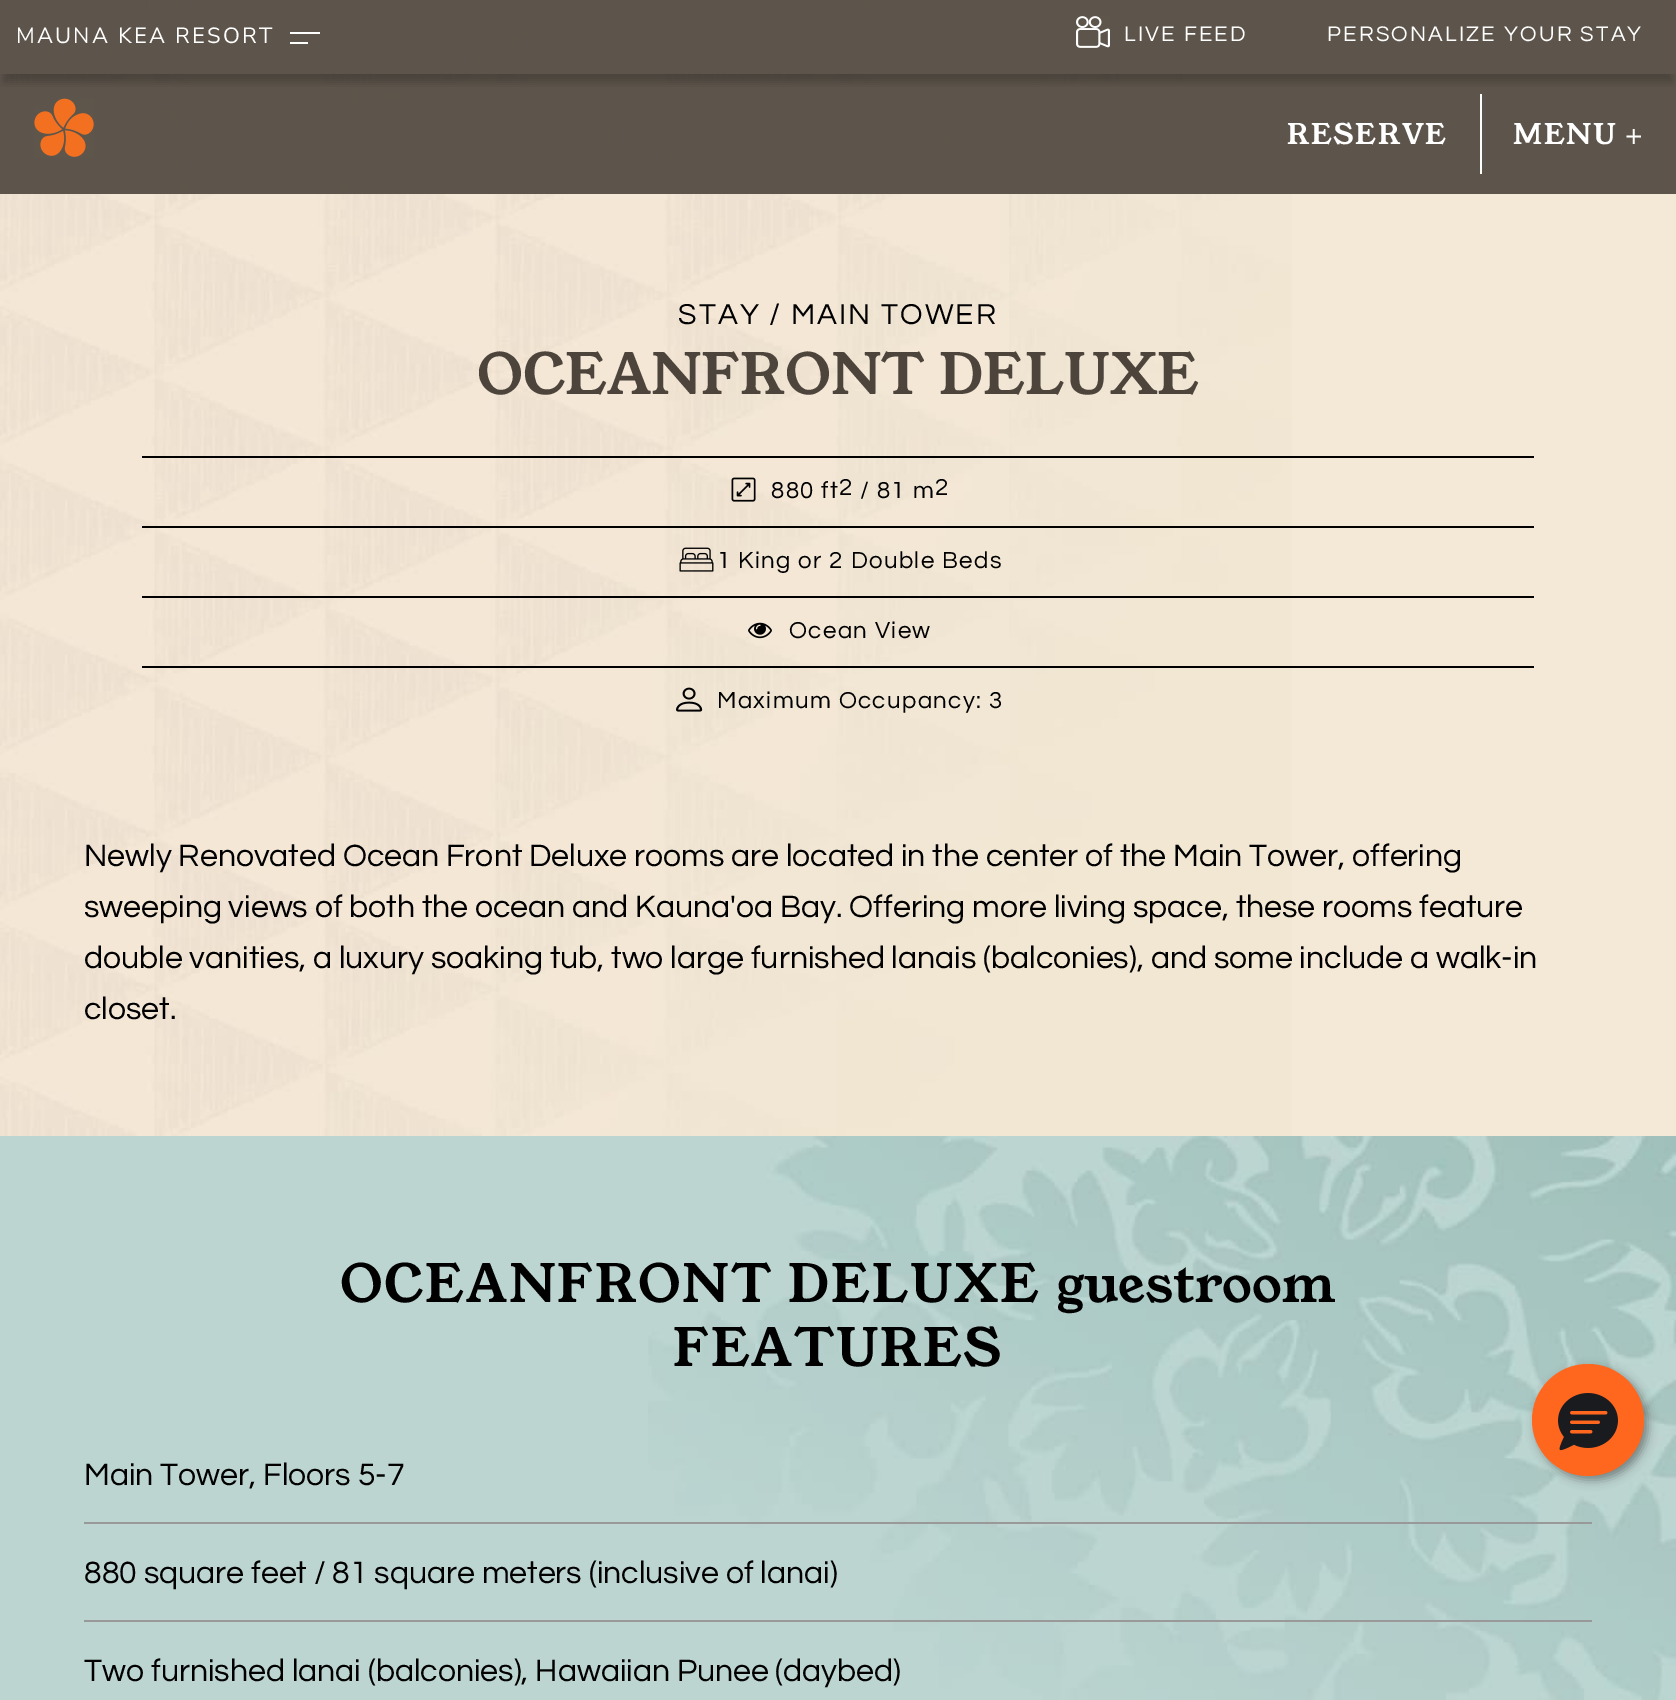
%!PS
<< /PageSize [1676 1700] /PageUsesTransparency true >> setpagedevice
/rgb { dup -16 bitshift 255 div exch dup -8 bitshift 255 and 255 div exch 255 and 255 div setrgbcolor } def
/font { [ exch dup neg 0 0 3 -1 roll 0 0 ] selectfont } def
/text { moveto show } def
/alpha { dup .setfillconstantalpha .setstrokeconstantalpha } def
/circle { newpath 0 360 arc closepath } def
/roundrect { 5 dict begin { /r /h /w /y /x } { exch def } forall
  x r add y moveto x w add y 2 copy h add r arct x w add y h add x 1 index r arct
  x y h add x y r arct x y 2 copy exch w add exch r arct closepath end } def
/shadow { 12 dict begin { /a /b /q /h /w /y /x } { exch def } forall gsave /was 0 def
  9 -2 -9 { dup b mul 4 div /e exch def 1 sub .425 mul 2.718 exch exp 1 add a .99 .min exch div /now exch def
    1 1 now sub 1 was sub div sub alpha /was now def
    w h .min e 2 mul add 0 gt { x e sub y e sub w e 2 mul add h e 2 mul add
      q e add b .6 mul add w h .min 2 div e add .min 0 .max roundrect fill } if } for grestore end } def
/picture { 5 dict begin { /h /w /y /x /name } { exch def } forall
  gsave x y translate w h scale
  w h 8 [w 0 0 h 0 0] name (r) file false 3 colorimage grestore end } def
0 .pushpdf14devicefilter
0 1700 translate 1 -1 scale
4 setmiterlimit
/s1 { /YoungSerif-Regular 56 font 16#4D453C rgb } def
/s2 { /Questrial-Regular 32 font 16#000000 rgb } def
/s3 { /YoungSerif-Regular 52 font 16#000000 rgb } def
16#F4E8D6 rgb
0 0 1676 1700 rectfill
(pic3.raw) 0 0 1292 1136 picture
0.9 alpha
16#4D453C rgb
0 74 1676 120 rectfill
1 alpha
16#FFFFFF rgb
1480 94 2 80 rectfill
gsave
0 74 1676 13 rectclip
16#000000 rgb
4 16 1668 66 0 4 0.2 shadow
grestore
0.9 alpha
16#4D453C rgb
0 0 1676 74 rectfill
/NunitoSans-Regular 22 font
1 alpha
16#FFFFFF rgb
16 43 moveto 2.2 0 (MAUNA KEA RESORT) ashow
290 32 30 2 rectfill
290 42 18 2 rectfill
(pic1.raw) 1076 16 34 32 picture
/Questrial-Regular 22 font
1124 41 moveto 2.2 0 (LIVE FEED) ashow
1327 41 moveto 2.2 0 (PERSONALIZE YOUR STAY) ashow
(pic2.raw) 34 98 60 59 picture
/YoungSerif-Regular 28 font
1287 144 moveto 1.5 0 (RESERVE) ashow
1513 144 moveto 1.5 0 (MENU) ashow
/Questrial-Regular 32 font
1625 144 moveto 1.5 0 (+) ashow
/Questrial-Regular 30 font
16#000000 rgb
678 324 moveto 2.1 0 (STAY / MAIN TOWER) ashow
s1
(OCEANFRONT DELUXE) 477 394 text
16#000000 rgb
142 456 1392 2 rectfill
(pic4.raw) 731 477 25 25 picture
/Questrial-Regular 24 font
771 498 moveto 1.4 0 (880 ft) ashow
839 495 moveto 1.4 0 (2) ashow
860 498 moveto 1.4 0 (/ 81 m) ashow
935 495 moveto 1.4 0 (2) ashow
142 526 1392 2 rectfill
(pic5.raw) 679 547 35 25 picture
717 568 moveto 1.4 0 (1 King or 2 Double Beds) ashow
142 596 1392 2 rectfill
(pic6.raw) 748 622 24 17 picture
789 638 moveto 1.4 0 (Ocean View) ashow
142 666 1392 2 rectfill
(pic7.raw) 676 687 27 25 picture
717 708 moveto 1.4 0 (Maximum Occupancy: 3) ashow
s2
(Newly Renovated Ocean Front Deluxe rooms are located in the center of the Main Tower, offering) 84 866 text
(sweeping views of both the ocean and Kauna'oa Bay. Offering more living space, these rooms feature) 84 917 text
(double vanities, a luxury soaking tub, two large furnished lanais \(balconies\), and some include a walk-in) 84 968 text
(closet.) 84 1019 text
16#BCD5D1 rgb
0 1136 648 564 rectfill
(pic8.raw) 648 1136 1028 564 picture
/YoungSerif-Regular 52 font
16#000000 rgb
340 1302 moveto 1.75 0 (OCEANFRONT DELUXE) ashow
(guestroom) 1057 1302 text
673 1366 moveto 1.5 0 (FEATURES) ashow
s2
(Main Tower, Floors 5-7) 84 1485 text
16#999999 rgb
84 1522 1508 2 rectfill
s2
(880 square feet / 81 square meters \(inclusive of lanai\)) 84 1583 text
16#999999 rgb
84 1620 1508 2 rectfill
s2
(Two furnished lanai \(balconies\), Hawaiian Punee \(daybed\)) 84 1681 text
16#2D2D2D rgb
1536 1368 112 112 56 5 0.5 shadow
16#FF671F rgb
1588 1420 56 circle fill
(pic9.raw) 1558 1393 60 58 picture
.poppdf14devicefilter showpage
